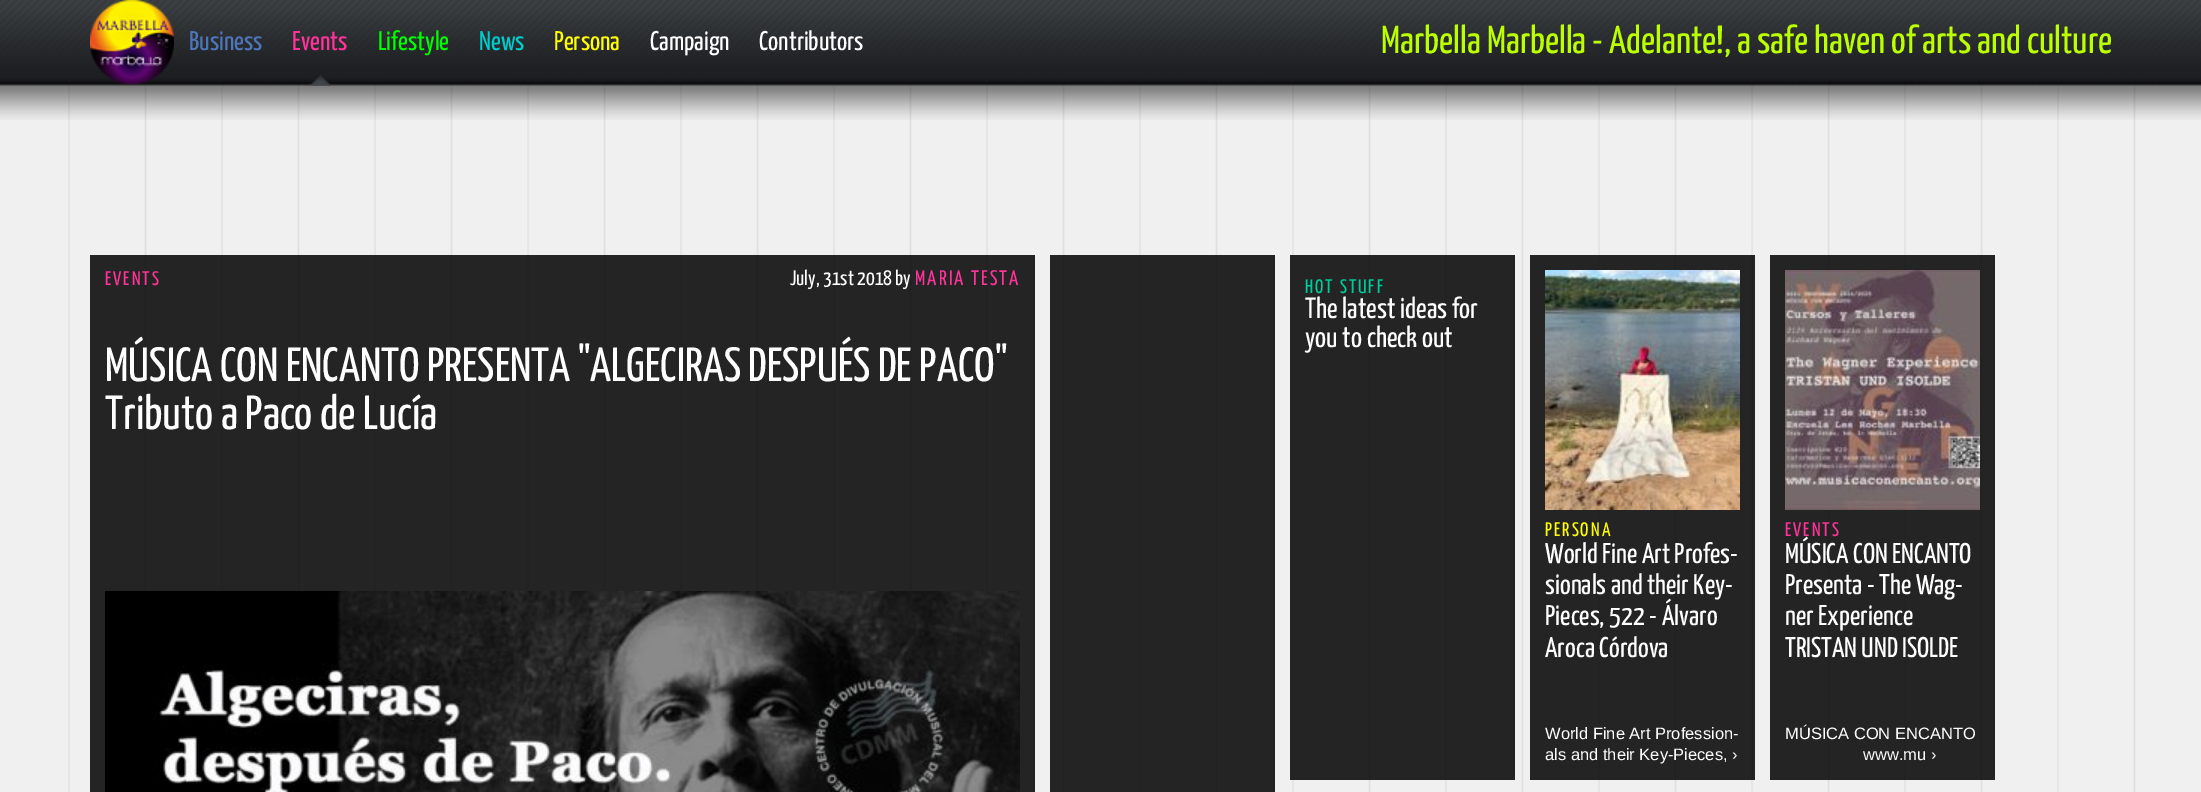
%!PS
<< /PageSize [2201 792] /PageUsesTransparency true >> setpagedevice
/rgb { dup -16 bitshift 255 div exch dup -8 bitshift 255 and 255 div exch 255 and 255 div setrgbcolor } def
/font { [ exch dup neg 0 0 3 -1 roll 0 0 ] selectfont } def
/text { moveto show } def
/alpha { dup .setfillconstantalpha .setstrokeconstantalpha } def
/picture { 5 dict begin { /h /w /y /x /name } { exch def } forall
  gsave x y translate w h scale
  w h 8 [w 0 0 h 0 0] name (r) file false 3 colorimage grestore end } def
0 .pushpdf14devicefilter
0 792 translate 1 -1 scale
4 setmiterlimit
/s1 { /YanoneKaffeesatz-ExtraLight 27 font 16#4D76B8 rgb } def
/s2 { /YanoneKaffeesatz-ExtraLight 27 font 16#FF3399 rgb } def
/s3 { /YanoneKaffeesatz-ExtraLight 27 font 16#00FF00 rgb } def
/s4 { /YanoneKaffeesatz-ExtraLight 27 font 16#00CCCC rgb } def
/s5 { /YanoneKaffeesatz-ExtraLight 27 font 16#FFFF00 rgb } def
/s6 { /YanoneKaffeesatz-ExtraLight 27 font 16#FFFFFF rgb } def
/s7 { /YanoneKaffeesatz-ExtraLight 39 font 16#BBFF00 rgb } def
/s8 { /YanoneKaffeesatz-ExtraLight 21 font 16#FFFFFF rgb } def
/s9 { /YanoneKaffeesatz-ExtraLight 48 font 16#FFFFFF rgb } def
/s10 { /YanoneKaffeesatz-ExtraLight 29.25 font 16#FFFFFF rgb } def
/s11 { /YanoneKaffeesatz-ExtraLight 28.5 font 16#FFFFFF rgb } def
/s12 { /LiberationSans-Regular 16.5 font 16#FFFFFF rgb } def
16#FFFFFF rgb
0 0 2201 792 rectfill
(pic1.raw) 0 83 2201 709 picture
(pic2.raw) 0 0 2201 120 picture
(pic3.raw) 90 0 84 84 picture
s1
(Business) 189 50 text
(pic4.raw) 310 75 21 11 picture
s2
(Events) 292 50 text
s3
(Lifestyle) 378 50 text
s4
(News) 479 50 text
s5
(Persona) 554 50 text
s6
(Campaign) 650 50 text
(Contributors) 759 50 text
s7
(Marbella Marbella - Adelante!, a safe haven of arts and culture) 1381 53 text
0.85 alpha
16#000000 rgb
90 255 945 537 rectfill
/YanoneKaffeesatz-ExtraLight 19.5 font
1 alpha
16#FF3399 rgb
105 285 moveto 2 0 (EVENTS) ashow
s8
(July, 31st 2018 by) 790 285 text
16#FF3399 rgb
915 285 moveto 2.1 0 (MARIA TESTA) ashow
s9
(MÚSICA CON ENCANTO PRESENTA "ALGECIRAS DESPUÉS DE PACO") 105 381 text
(Tributo a Paco de Lucía) 105 429 text
(pic5.raw) 105 591 915 201 picture
0.85 alpha
16#000000 rgb
1050 255 225 537 rectfill
1290 255 225 525 rectfill
/YanoneKaffeesatz-ExtraLight 19.5 font
1 alpha
16#00CC99 rgb
1305 293 moveto 2 0 (HOT STUFF) ashow
s10
(The latest ideas for) 1305 318 text
(you to check out) 1305 347 text
0.85 alpha
16#000000 rgb
1530 255 225 525 rectfill
1 alpha
(pic6.raw) 1545 270 195 240 picture
/YanoneKaffeesatz-ExtraLight 19.5 font
16#FFFF00 rgb
1545 536 moveto 2 0 (PERSONA) ashow
s11
(World Fine Art Profes-) 1545 563 text
(sionals and their Key-) 1545 594 text
(Pieces, 522 - Álvaro) 1545 625 text
(Aroca Córdova) 1545 657 text
s12
(World Fine Art Profession-) 1545 739 text
(als and their Key-Pieces, ›) 1545 760 text
0.85 alpha
16#000000 rgb
1770 255 225 525 rectfill
1 alpha
(pic7.raw) 1785 270 195 240 picture
/YanoneKaffeesatz-ExtraLight 19.5 font
16#FF3399 rgb
1785 536 moveto 2 0 (EVENTS) ashow
s11
(MÚSICA CON ENCANTO) 1785 563 text
(Presenta - The Wag-) 1785 594 text
(ner Experience) 1785 625 text
(TRISTAN UND ISOLDE) 1785 657 text
s12
(MÚSICA CON ENCANTO) 1785 739 text
(www.mu ›) 1863 760 text
.poppdf14devicefilter showpage
